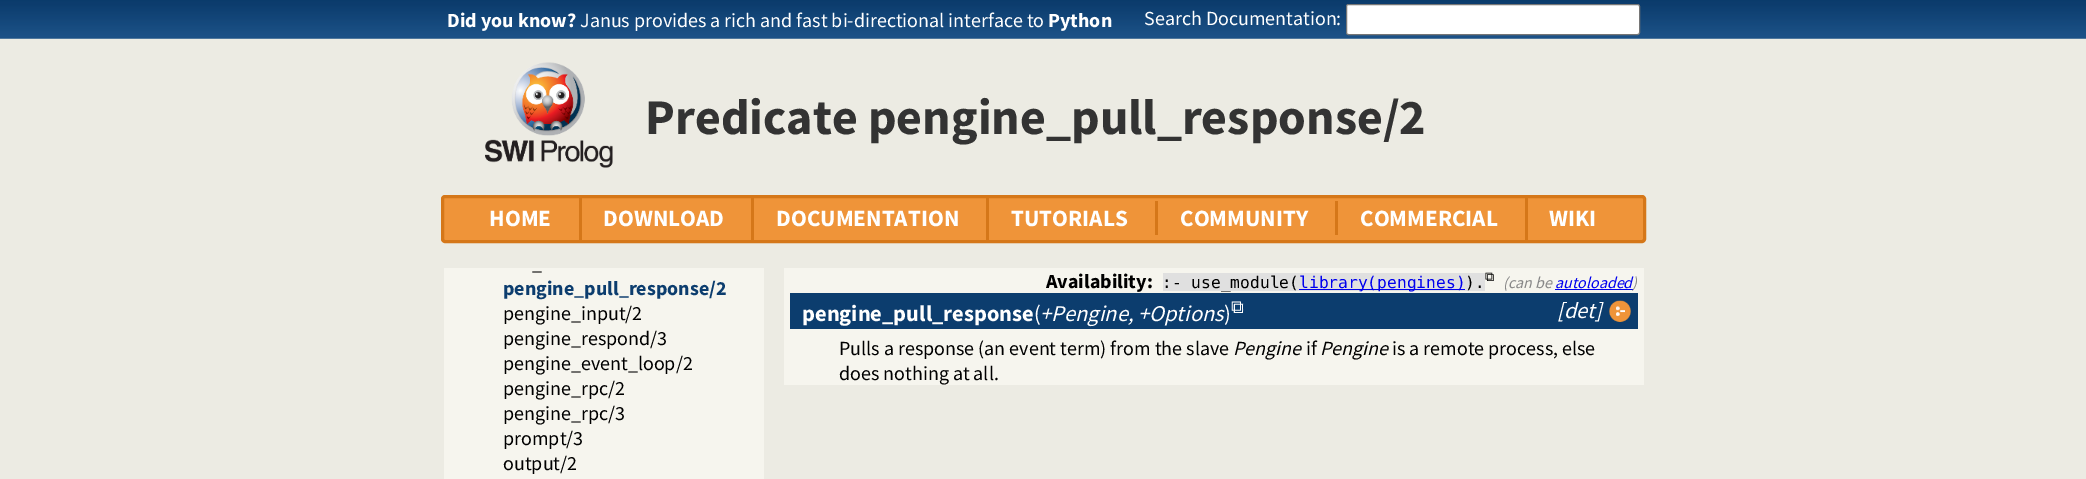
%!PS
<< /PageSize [2086 479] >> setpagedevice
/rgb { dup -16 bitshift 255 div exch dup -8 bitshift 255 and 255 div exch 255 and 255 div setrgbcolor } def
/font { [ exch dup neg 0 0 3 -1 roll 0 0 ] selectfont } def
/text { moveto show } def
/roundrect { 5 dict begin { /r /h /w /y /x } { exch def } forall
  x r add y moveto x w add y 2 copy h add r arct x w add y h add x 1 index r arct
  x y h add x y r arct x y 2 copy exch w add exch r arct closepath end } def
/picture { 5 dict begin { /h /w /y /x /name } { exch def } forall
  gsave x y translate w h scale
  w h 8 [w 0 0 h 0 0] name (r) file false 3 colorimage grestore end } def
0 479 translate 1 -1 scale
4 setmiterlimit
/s1 { /SourceSansPro-Bold 20 font 16#FFFFFF rgb } def
/s2 { /SourceSansPro-Regular 20 font 16#FFFFFF rgb } def
/s3 { /SourceSansPro-Bold 50 font 16#333333 rgb } def
/s4 { /SourceSansPro-Bold 23.25 font 16#FFFFFF rgb } def
/s5 { /SourceSansPro-Regular 20 font 16#000000 rgb } def
/s6 { /SourceSansPro-Bold 20 font 16#0C3D6E rgb } def
/s7 { /SourceSansPro-Bold 20 font 16#000000 rgb } def
/s8 { /DejaVuSansMono-Regular 16.25 font 16#000000 rgb } def
/s9 { /DejaVuSansMono-Regular 16.25 font 16#0000EE rgb } def
/s10 { /FreeSerif-Regular 13 font 16#000000 rgb } def
/s11 { /SourceSansPro-Italic 16 font 16#888888 rgb } def
/s12 { /SourceSansPro-Italic 16 font 16#0000EE rgb } def
/s13 { /SourceSansPro-Bold 22.5 font 16#FFFFFF rgb } def
/s14 { /SourceSansPro-Regular 22.5 font 16#FFFFFF rgb } def
/s15 { /SourceSansPro-Italic 22.5 font 16#FFFFFF rgb } def
/s16 { /FreeSerif-Regular 18 font 16#FFFFFF rgb } def
/s17 { /SourceSansPro-Italic 20 font 16#000000 rgb } def
16#ECEBE3 rgb
0 0 2086 479 rectfill
(pic1.raw) 0 0 2086 39 picture
s1
(Did you know?) 447 27 text
s2
(Janus provides a rich and fast bi-directional interface to) 580 27 text
s1
(Python) 1048 27 text
s2
(Search Documentation:) 1144 25 text
1346.5 4.5 293 30 2 roundrect gsave fill grestore
16#767676 rgb
stroke
(pic2.raw) 485 62 128 106 picture
s3
(Predicate pengine_pull_response/2) 645 134 text
16#EF9439 rgb
442.5 196.5 1202 45 2.5 roundrect gsave fill grestore
16#D57719 rgb
3 setlinewidth
stroke
s4
(HOME) 489 226 text
16#D57719 rgb
579 198 3 42 rectfill
s4
(DOWNLOAD) 603 226 text
16#D57719 rgb
751 198 3 42 rectfill
s4
(DOCUMENTATION) 776 226 text
16#D57719 rgb
986 198 3 42 rectfill
s4
(TUTORIALS) 1011 226 text
16#D57719 rgb
1155 201 3 34 rectfill
s4
(COMMUNITY) 1180 226 text
16#D57719 rgb
1335 201 3 34 rectfill
s4
(COMMERCIAL) 1360 226 text
16#D57719 rgb
1525 198 3 42 rectfill
s4
(WIKI) 1549 226 text
16#F6F5EE rgb
444 268 320 211 rectfill
s5
(_) 532 270 text
s6
(pengine_pull_response/2) 503 295 text
s5
(pengine_input/2) 503 320 text
(pengine_respond/3) 503 345 text
(pengine_event_loop/2) 503 370 text
(pengine_rpc/2) 503 395 text
(pengine_rpc/3) 503 420 text
(prompt/3) 503 445 text
(output/2) 503 470 text
16#F6F5EE rgb
784 268 860 117 rectfill
s7
(Availability:) 1046 288 text
16#E0E0E0 rgb
1163 273 322 18 rectfill
s8
(:- use_module\() 1162 288 text
16#0000EE rgb
1299 289 166 1 rectfill
(library\(pengines\)) 1299 288 text
s8
(\).) 1465 288 text
s10
(⧉) 1485 281 text
s11
(\(can be) 1503 288 text
s12
(autoloaded) 1555 288 text
1555 289 78 1 rectfill
s11
(\)) 1632 288 text
16#0C3D6E rgb
790 293 848 36 rectfill
s13
(pengine_pull_response) 802 321 text
s14
(\() 1034 321 text
s15
(+Pengine, +Options) 1040 321 text
s14
(\)) 1224 321 text
s16
(⧉) 1231 313 text
s15
([det]) 1557 318 text
(pic3.raw) 1609 300 22 22 picture
s5
(Pulls a response \(an event term\) from the slave) 839 355 text
s17
(Pengine) 1233 355 text
s5
(if) 1306 355 text
s17
(Pengine) 1320 355 text
s5
(is a remote process, else) 1392 355 text
(does nothing at all.) 839 380 text
showpage
